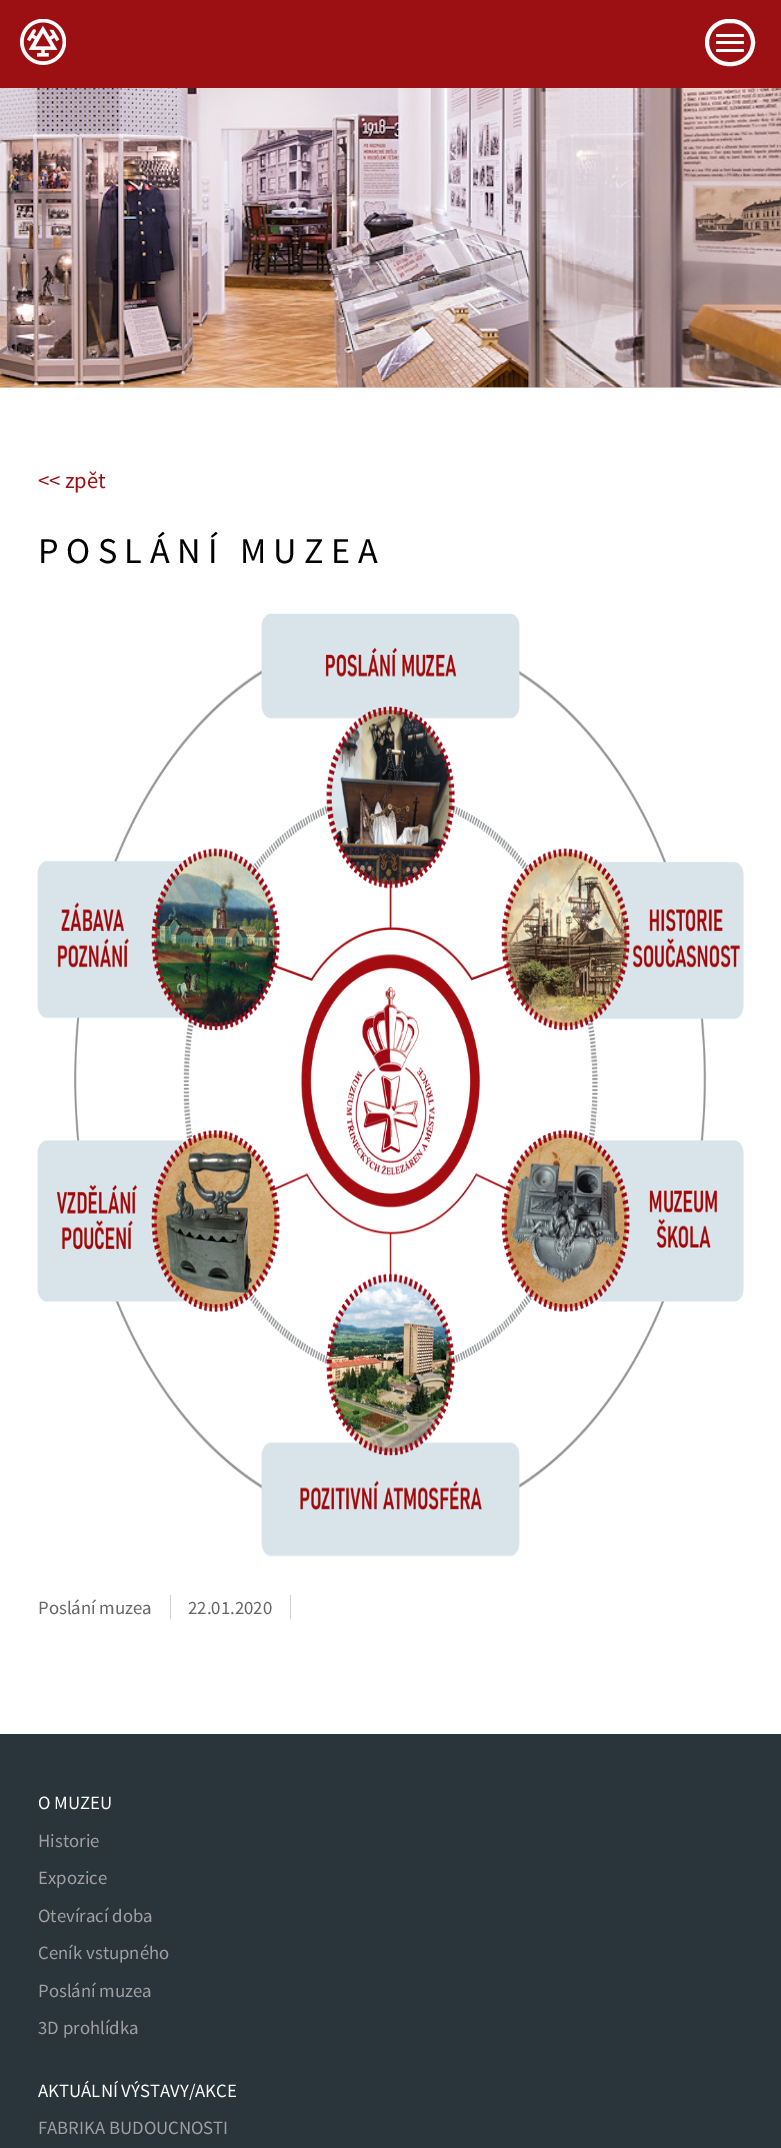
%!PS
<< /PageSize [781 2148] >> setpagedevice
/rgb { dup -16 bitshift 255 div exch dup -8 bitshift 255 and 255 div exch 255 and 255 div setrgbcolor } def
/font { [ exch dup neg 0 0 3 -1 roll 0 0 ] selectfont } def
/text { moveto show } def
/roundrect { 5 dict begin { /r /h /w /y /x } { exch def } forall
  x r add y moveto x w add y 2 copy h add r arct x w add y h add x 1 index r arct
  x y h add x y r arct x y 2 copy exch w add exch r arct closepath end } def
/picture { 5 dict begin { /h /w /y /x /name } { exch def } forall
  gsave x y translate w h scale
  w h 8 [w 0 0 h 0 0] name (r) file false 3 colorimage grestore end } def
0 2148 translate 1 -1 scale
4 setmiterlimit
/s1 { /SourceSansPro-Regular 22.5 font 16#9C0F12 rgb } def
/s2 { /SourceSansPro-Regular 18.75 font 16#666666 rgb } def
/s3 { /SourceSansPro-Regular 18.75 font 16#FEFEFE rgb } def
/s4 { /SourceSansPro-Regular 18.75 font 16#A0A0A0 rgb } def
16#FFFFFF rgb
0 0 781 2148 rectfill
16#9C0F12 rgb
0 0 781 88 rectfill
(pic1.raw) 20 19 46 46 picture
16#FEFEFE rgb
4 setlinewidth
707 21 46 43 21.5 roundrect stroke
716 34 28 3 1.5 roundrect fill
716 41 28 3 1.5 roundrect fill
716 49 28 3 1.5 roundrect fill
16#D5CDCB rgb
0 387 781 1 rectfill
(pic2.raw) 0 88 781 300 picture
s1
(<< zpět) 38 488 text
/SourceSansPro-Regular 36.25 font
16#000000 rgb
38 563 moveto 7.5 0 (POSLÁNÍ MUZEA) ashow
(pic3.raw) 37 613 707 944 picture
s2
(Poslání muzea) 38 1614 text
16#D0D0D0 rgb
170 1595 1 24 rectfill
s2
(22.01.2020) 188 1614 text
16#D0D0D0 rgb
290 1595 1 24 rectfill
16#29343B rgb
0 1734 781 414 rectfill
s3
(O MUZEU) 38 1809 text
s4
(Historie) 38 1847 text
(Expozice) 38 1884 text
(Otevírací doba) 38 1922 text
(Ceník vstupného) 38 1959 text
(Poslání muzea) 38 1997 text
(3D prohlídka) 38 2034 text
s3
(AKTUÁLNÍ VÝSTAVY/AKCE) 38 2097 text
s4
(FABRIKA BUDOUCNOSTI) 38 2134 text
showpage
